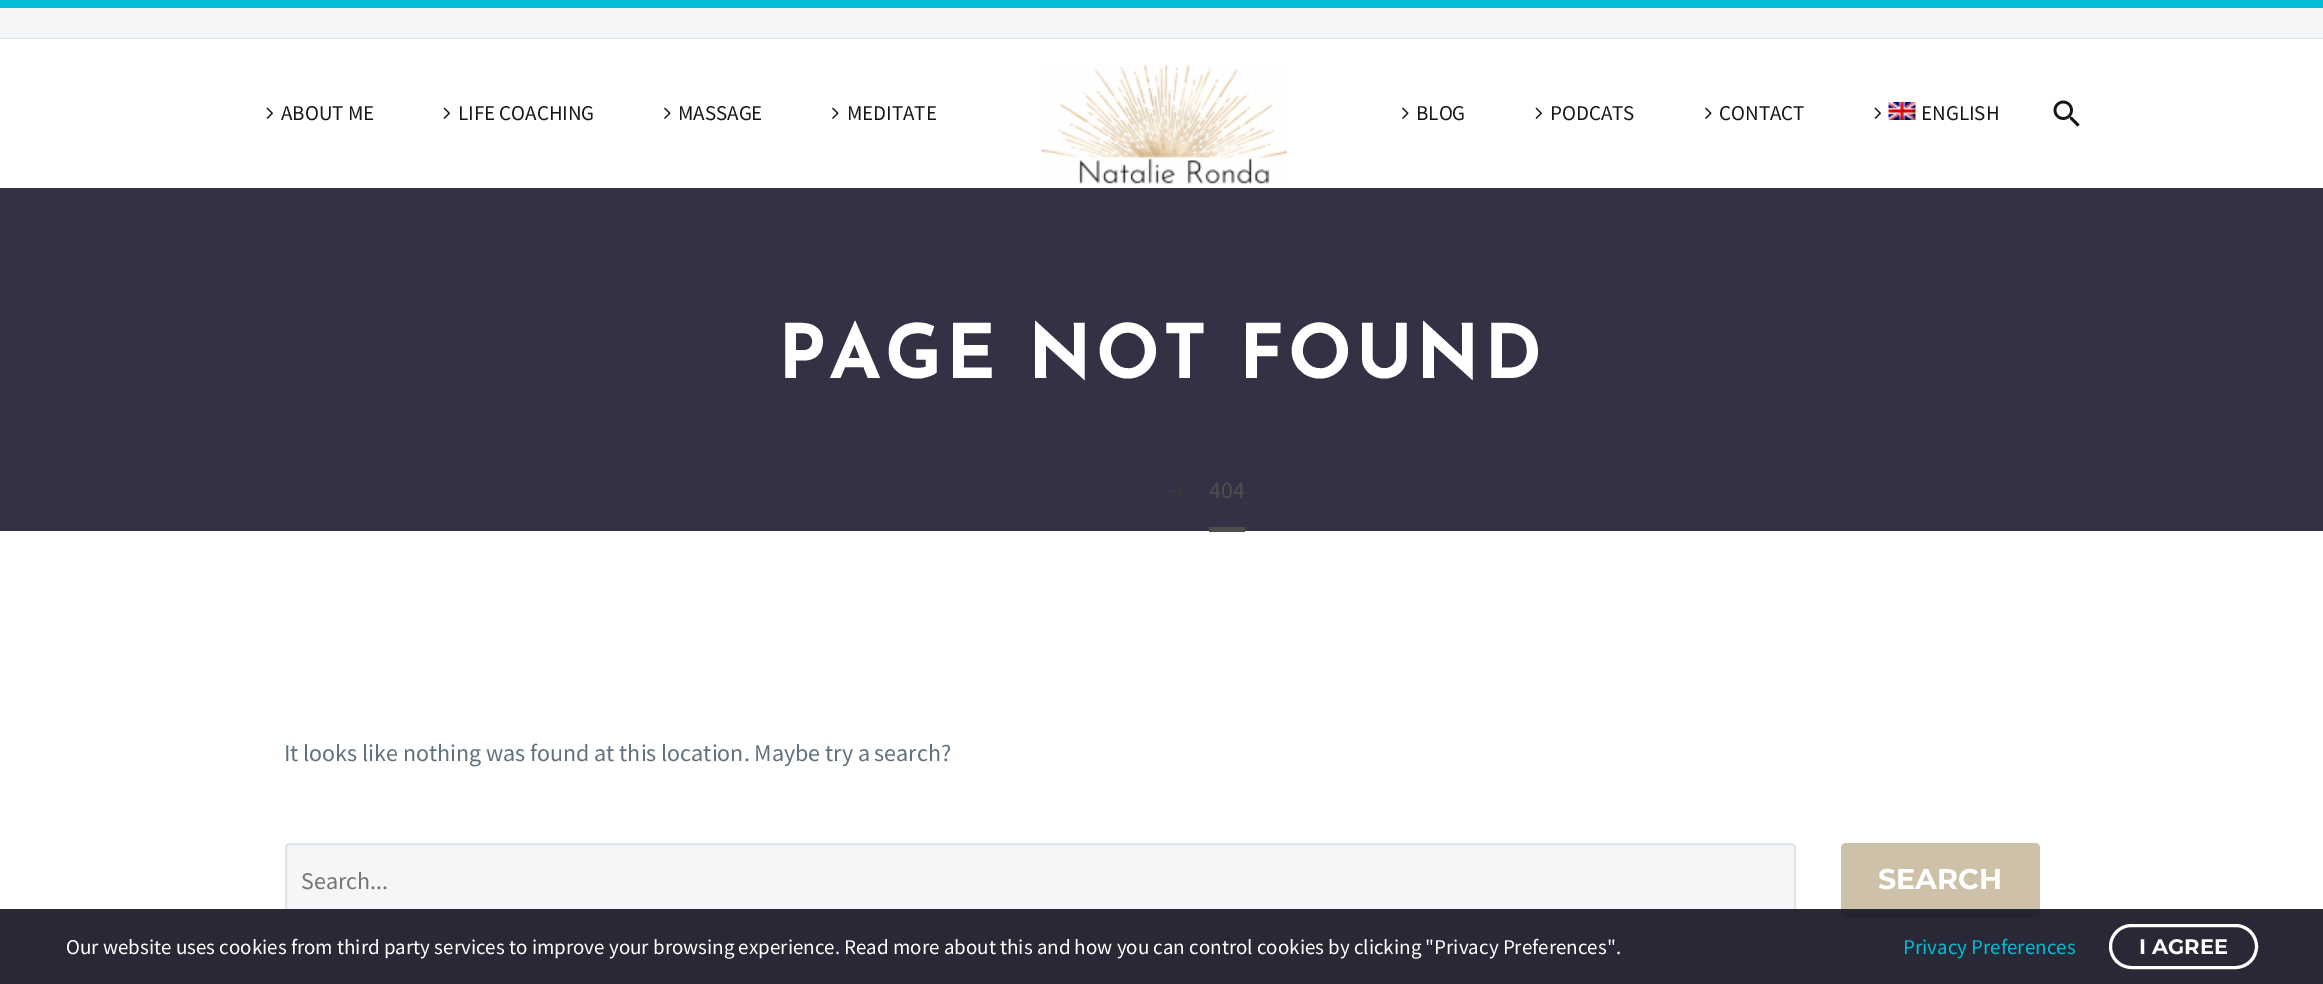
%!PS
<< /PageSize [2323 984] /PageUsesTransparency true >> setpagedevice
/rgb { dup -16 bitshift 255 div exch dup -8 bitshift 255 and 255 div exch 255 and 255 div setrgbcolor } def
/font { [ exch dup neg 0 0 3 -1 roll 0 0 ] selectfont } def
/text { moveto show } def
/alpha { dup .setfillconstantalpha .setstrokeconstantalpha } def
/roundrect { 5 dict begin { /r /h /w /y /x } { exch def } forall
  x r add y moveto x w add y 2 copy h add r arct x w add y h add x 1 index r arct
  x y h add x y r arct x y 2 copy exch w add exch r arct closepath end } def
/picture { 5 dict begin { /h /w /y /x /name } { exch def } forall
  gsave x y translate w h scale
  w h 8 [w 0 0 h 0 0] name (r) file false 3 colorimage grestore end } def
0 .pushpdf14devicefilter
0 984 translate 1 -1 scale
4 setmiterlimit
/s1 { /SourceSansPro-Regular 21 font 16#151717 rgb } def
/s2 { /SourceSansPro-Regular 24 font 16#4E4E4C rgb } def
/s3 { /SourceSansPro-Regular 24 font 16#5F727F rgb } def
/s4 { /SourceSansPro-Regular 24 font 16#757575 rgb } def
/s5 { /Montserrat-Bold 28.5 font 16#FFFFFF rgb } def
/s6 { /SourceSansPro-Regular 21 font 16#FFFFFF rgb } def
/s7 { /SourceSansPro-Regular 21 font 16#00BCD4 rgb } def
/s8 { /Montserrat-Bold 21 font 16#FFFFFF rgb } def
16#FFFFFF rgb
0 0 2323 984 rectfill
16#00BCD4 rgb
0 0 2323 8 rectfill
16#DFE5E8 rgb
0 38 2323 1 rectfill
16#F4F6F7 rgb
0 8 2323 30 rectfill
(pic1.raw) 266 107 7 12 picture
s1
(ABOUT ME) 281 120 text
(pic1.raw) 443 107 7 12 picture
(LIFE COACHING) 458 120 text
(pic2.raw) 664 107 7 12 picture
(MASSAGE) 678 120 text
(pic2.raw) 832 107 7 12 picture
(MEDITATE) 847 120 text
(pic3.raw) 1041 64 246 120 picture
(pic2.raw) 1402 107 7 12 picture
(BLOG) 1416 120 text
(pic1.raw) 1535 107 7 12 picture
(PODCATS) 1550 120 text
(pic2.raw) 1705 107 7 12 picture
(CONTACT) 1719 120 text
(pic1.raw) 1874 107 7 12 picture
(pic4.raw) 1888 102 28 18 picture
(ENGLISH) 1921 120 text
(pic5.raw) 2053 100 27 27 picture
16#333144 rgb
0 188 2323 343 rectfill
/JosefinSans-Bold 75 font
16#FFFFFF rgb
778 378 moveto 3.75 0 (PAGE NOT FOUND) ashow
(pic6.raw) 1166 486 18 10 picture
16#4E4E4C rgb
1209 527 36 5 rectfill
s2
(404) 1209 498 text
s3
(It looks like nothing was found at this location. Maybe try a search?) 284 761 text
16#F4F6F7 rgb
286 844 1509 73 4 roundrect gsave fill grestore
16#DFE5E8 rgb
2 setlinewidth
stroke
s4
(Search...) 301 889 text
16#CDC1AA rgb
1841 843 199 75 5 roundrect fill
s5
(SEARCH) 1878 889 text
0.93 alpha
16#181828 rgb
0 909 2323 75 rectfill
1 alpha
s6
(Our website uses cookies from third party services to improve your browsing experience. Read more about this and how you can control cookies by clicking "Privacy Preferences".) 66 954 text
s7
(Privacy Preferences) 1903 954 text
16#FFFFFF rgb
3 setlinewidth
2110.5 925.5 146 42 21 roundrect stroke
s8
(I AGREE) 2139 954 text
.poppdf14devicefilter showpage
